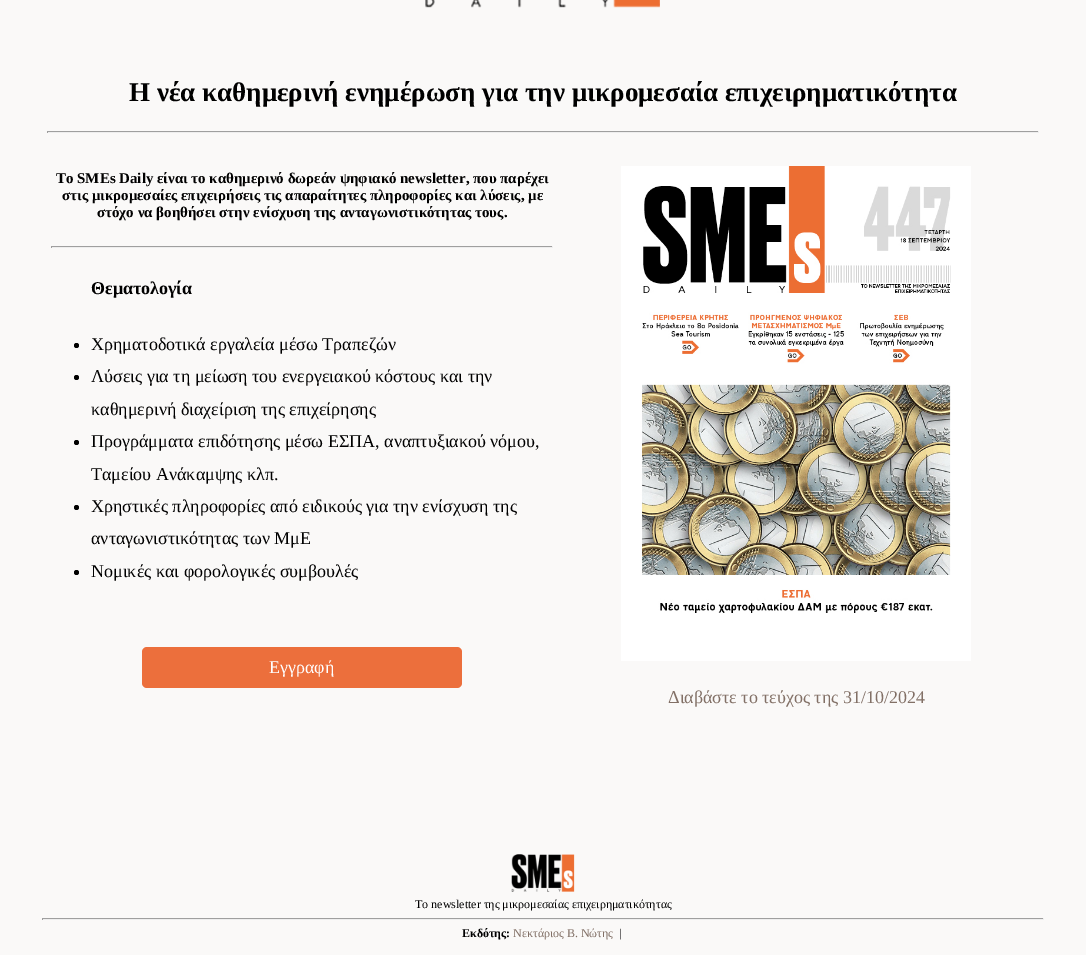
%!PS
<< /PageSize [1086 955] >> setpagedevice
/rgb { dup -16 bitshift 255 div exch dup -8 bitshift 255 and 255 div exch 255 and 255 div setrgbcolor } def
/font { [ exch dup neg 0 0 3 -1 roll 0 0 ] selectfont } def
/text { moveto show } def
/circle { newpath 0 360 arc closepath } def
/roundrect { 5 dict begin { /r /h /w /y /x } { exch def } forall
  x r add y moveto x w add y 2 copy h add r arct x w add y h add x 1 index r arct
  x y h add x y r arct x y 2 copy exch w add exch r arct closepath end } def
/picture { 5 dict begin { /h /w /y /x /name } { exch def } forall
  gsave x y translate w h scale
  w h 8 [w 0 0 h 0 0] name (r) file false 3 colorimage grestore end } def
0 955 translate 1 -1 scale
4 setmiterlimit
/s1 { /LiberationSerif-Bold 27 font 16#000000 rgb } def
/s2 { /LiberationSerif-Bold 14.95 font 16#000000 rgb } def
/s3 { /LiberationSerif-Bold 18 font 16#000000 rgb } def
/s4 { /LiberationSerif-Regular 18 font 16#000000 rgb } def
/s5 { /LiberationSerif-Regular 18 font 16#FFFFFF rgb } def
/s6 { /LiberationSerif-Regular 18 font 16#827066 rgb } def
/s7 { /LiberationSerif-Regular 12 font 16#000000 rgb } def
/s8 { /LiberationSerif-Bold 12 font 16#000000 rgb } def
/s9 { /LiberationSerif-Regular 12 font 16#827066 rgb } def
16#FAF9F8 rgb
0 0 1086 955 rectfill
(pic1.raw) 425 0 235 8 picture
s1
(H νέα καθημερινή ενημέρωση για την μικρομεσαία επιχειρηματικότητα) 129 101 text
16#9F9F9F rgb
47 131 992 1 rectfill
16#EEEEEE rgb
1038 131 1 2 rectfill
47 132 992 1 rectfill
16#9F9F9F rgb
47 131 1 2 rectfill
s2
(Το SMEs Daily είναι το καθημερινό δωρεάν ψηφιακό newsletter, που παρέχει) 56 183 text
(στις μικρομεσαίες επιχειρήσεις τις απαραίτητες πληροφορίες και λύσεις, με) 62 200 text
(στόχο να βοηθήσει στην ενίσχυση της ανταγωνιστικότητας τους.) 97 217 text
16#9F9F9F rgb
51 246 502 1 rectfill
16#EEEEEE rgb
552 246 1 2 rectfill
51 247 502 1 rectfill
16#9F9F9F rgb
51 246 1 2 rectfill
s3
(Θεματολογία) 91 294 text
76.5 345.5 2.5 circle fill
s4
(Χρηματοδοτικά εργαλεία μέσω Τραπεζών) 91 350 text
76.5 377.5 2.5 circle fill
(Λύσεις για τη μείωση του ενεργειακού κόστους και την) 91 382 text
(καθημερινή διαχείριση της επιχείρησης) 91 415 text
76.5 442.5 2.5 circle fill
(Προγράμματα επιδότησης μέσω ΕΣΠΑ, αναπτυξιακού νόμου,) 91 447 text
(Ταμείου Ανάκαμψης κλπ.) 91 480 text
76.5 507.5 2.5 circle fill
(Χρηστικές πληροφορίες από ειδικούς για την ενίσχυση της) 91 512 text
(ανταγωνιστικότητας των ΜμΕ) 91 544 text
76.5 572.5 2.5 circle fill
(Νομικές και φορολογικές συμβουλές) 91 577 text
16#EC6F3C rgb
142 647 320 41 5 roundrect fill
s5
(Εγγραφή) 269 673 text
(pic2.raw) 621 166 350 495 picture
s6
(Διαβάστε το τεύχος της 31/10/2024) 668 703 text
(pic3.raw) 511 854 64 38 picture
s7
(Το newsletter της μικρομεσαίας επιχειρηματικότητας) 415 908 text
16#9F9F9F rgb
42 918 1002 1 rectfill
16#EEEEEE rgb
1043 918 1 2 rectfill
42 919 1002 1 rectfill
16#9F9F9F rgb
42 918 1 2 rectfill
s8
(Εκδότης:) 462 937 text
s9
(Νεκτάριος Β. Νώτης) 513 937 text
s7
(|) 619 937 text
showpage
